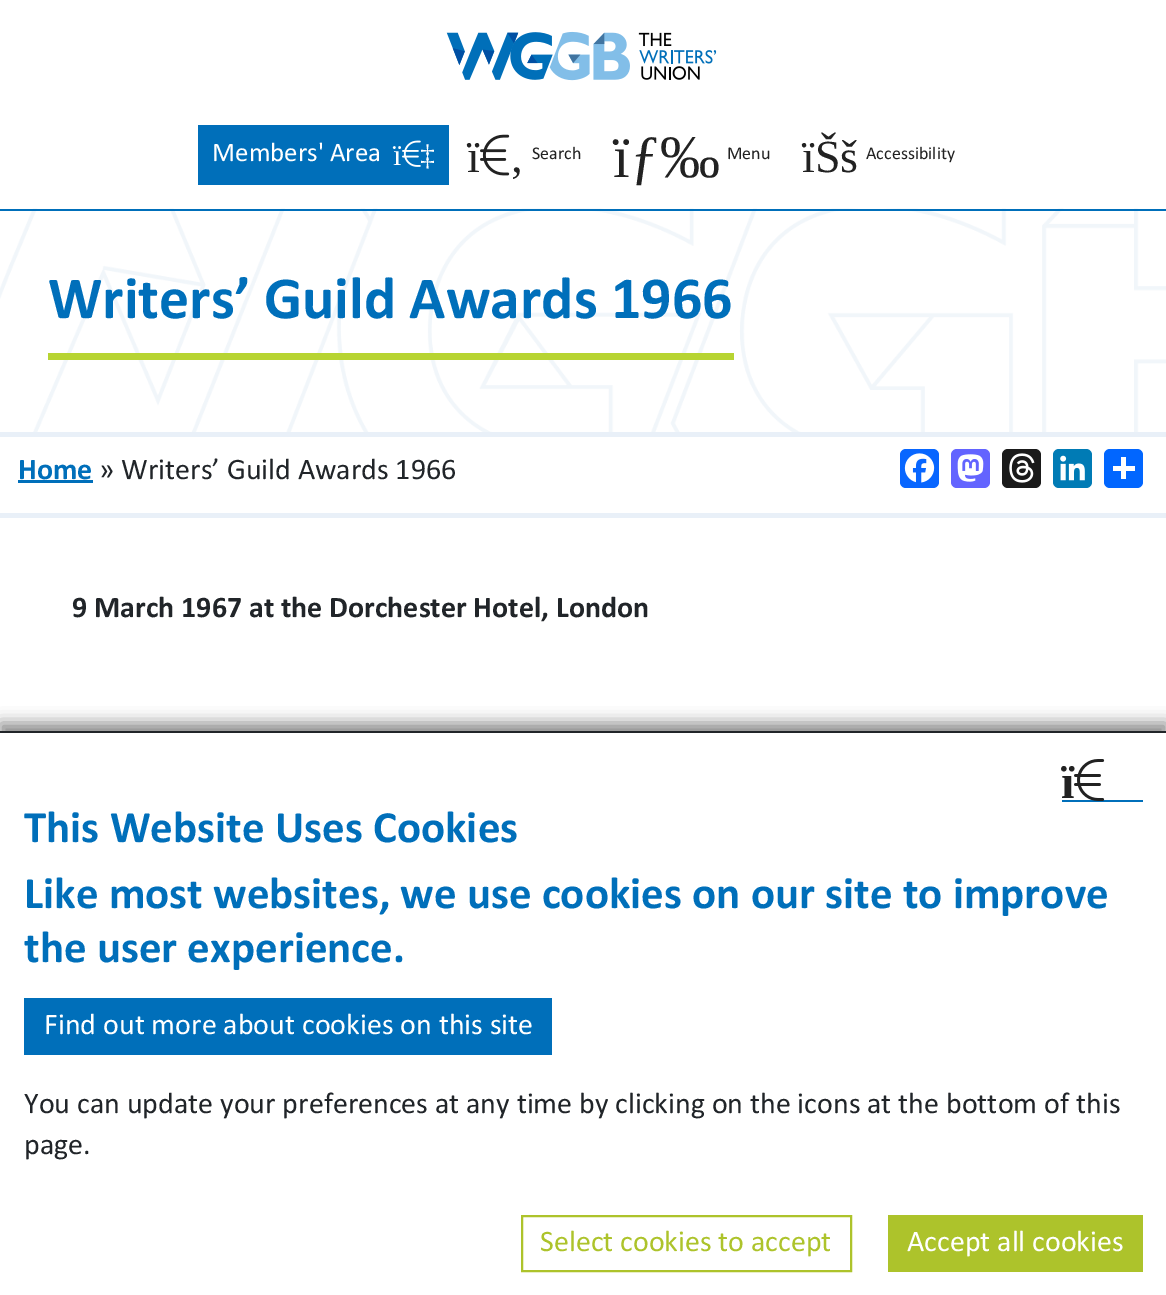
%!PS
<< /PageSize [1166 1295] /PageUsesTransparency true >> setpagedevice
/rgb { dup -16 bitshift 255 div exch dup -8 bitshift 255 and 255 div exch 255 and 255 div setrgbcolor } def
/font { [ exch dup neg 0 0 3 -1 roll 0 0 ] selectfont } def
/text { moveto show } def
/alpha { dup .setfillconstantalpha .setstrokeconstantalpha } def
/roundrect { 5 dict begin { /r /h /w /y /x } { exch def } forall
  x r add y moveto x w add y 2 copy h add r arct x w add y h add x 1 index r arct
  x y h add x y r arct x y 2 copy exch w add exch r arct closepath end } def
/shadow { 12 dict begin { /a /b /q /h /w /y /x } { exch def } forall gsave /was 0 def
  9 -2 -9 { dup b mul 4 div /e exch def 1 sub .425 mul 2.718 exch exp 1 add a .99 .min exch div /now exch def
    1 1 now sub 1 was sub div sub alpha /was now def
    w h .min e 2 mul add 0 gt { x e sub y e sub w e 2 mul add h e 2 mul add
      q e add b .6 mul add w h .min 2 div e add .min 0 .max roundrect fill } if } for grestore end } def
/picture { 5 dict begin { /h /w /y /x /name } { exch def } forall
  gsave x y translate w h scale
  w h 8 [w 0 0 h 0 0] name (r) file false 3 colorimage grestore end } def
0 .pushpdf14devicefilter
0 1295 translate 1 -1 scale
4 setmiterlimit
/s1 { /Calibri-Regular 27 font 16#FFFFFF rgb } def
/s2 { /LiberationSerif-Regular 30 font 16#FFFFFF rgb } def
/s3 { /LiberationSerif-Regular 46 font 16#222222 rgb } def
/s4 { /Calibri-Regular 18 font 16#222222 rgb } def
/s5 { /LiberationSerif-Regular 60 font 16#222222 rgb } def
/s6 { /Calibri-Bold 60 font 16#006FBA rgb } def
/s7 { /Calibri-Bold 30 font 16#006FBA rgb } def
/s8 { /Calibri-Regular 30 font 16#212529 rgb } def
/s9 { /Calibri-Bold 30 font 16#212529 rgb } def
/s10 { /LiberationSerif-Bold 48 font 16#222222 rgb } def
/s11 { /Calibri-Bold 45 font 16#006FBA rgb } def
/s12 { /Calibri-Regular 30 font 16#FFFFFF rgb } def
/s13 { /Calibri-Regular 30 font 16#ADC32B rgb } def
16#FFFFFF rgb
0 0 1166 1295 rectfill
(pic1.raw) 446 31 271 50 picture
16#006FBA rgb
198 125 251 60 rectfill
s1
(Members' Area) 212 161 text
s2
(ï) 393 165 text
(pic2.raw) 402 140 19 27 picture
(‡) 420 165 text
s3
(ï) 467 172 text
(pic3.raw) 480 134 30 42 picture
(‚) 509 172 text
s4
(Search) 532 159 text
s5
(ïƒ‰) 613 177 text
s4
(Menu) 727 159 text
s3
(ïŠš) 802 172 text
s4
(Accessibility) 866 159 text
(pic4.raw) 0 208 1166 224 picture
16#006FBA rgb
0 209 1166 2 rectfill
16#E9F0F8 rgb
0 432 1166 5 rectfill
16#B7D432 rgb
48 353 686 7 rectfill
s6
(Writers’ Guild Awards 1966) 48 318 text
16#E9F0F8 rgb
0 513 1166 5 rectfill
s7
(Home) 18 479 text
18 480 75 3 rectfill
s8
(» Writers’ Guild Awards 1966) 99 479 text
16#0866FF rgb
900 449 39 39 6 roundrect fill
(pic5.raw) 904 453 31 30 picture
16#6364FF rgb
951 449 39 39 6 roundrect fill
(pic6.raw) 957 454 27 28 picture
16#1A1A1A rgb
1002 449 39 39 6 roundrect fill
(pic7.raw) 1009 453 26 30 picture
16#007BB5 rgb
1053 449 39 39 6 roundrect fill
(pic8.raw) 1060 455 25 26 picture
16#0166FF rgb
1104 449 39 39 6 roundrect fill
16#FFFFFF rgb
1121 457 5 22 rectfill
1113 466 22 5 rectfill
s9
(9 March 1967 at the Dorchester Hotel, London) 72 617 text
16#000000 rgb
0 723 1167 566 0 7.5 0.45 shadow
16#FFFFFF rgb
0 733 1166 562 rectfill
16#212529 rgb
0 731 1166 2 rectfill
16#006FBA rgb
1062 800 81 2 rectfill
(pic9.raw) 1074 759 31 42 picture
s10
(ï) 1061 798 text
s11
(This Website Uses Cookies) 24 842 text
(Like most websites, we use cookies on our site to improve) 24 908 text
(the user experience.) 24 962 text
24 998 528 57 rectfill
s12
(Find out more about cookies on this site) 44 1034 text
s8
(You can update your preferences at any time by clicking on the icons at the bottom of this) 24 1113 text
(page.) 24 1154 text
16#ADC32B rgb
2 setlinewidth
522 1216 329 55 rectstroke
(Select cookies to accept) 540 1251 text
888 1215 255 57 rectfill
s12
(Accept all cookies) 907 1251 text
.poppdf14devicefilter showpage
